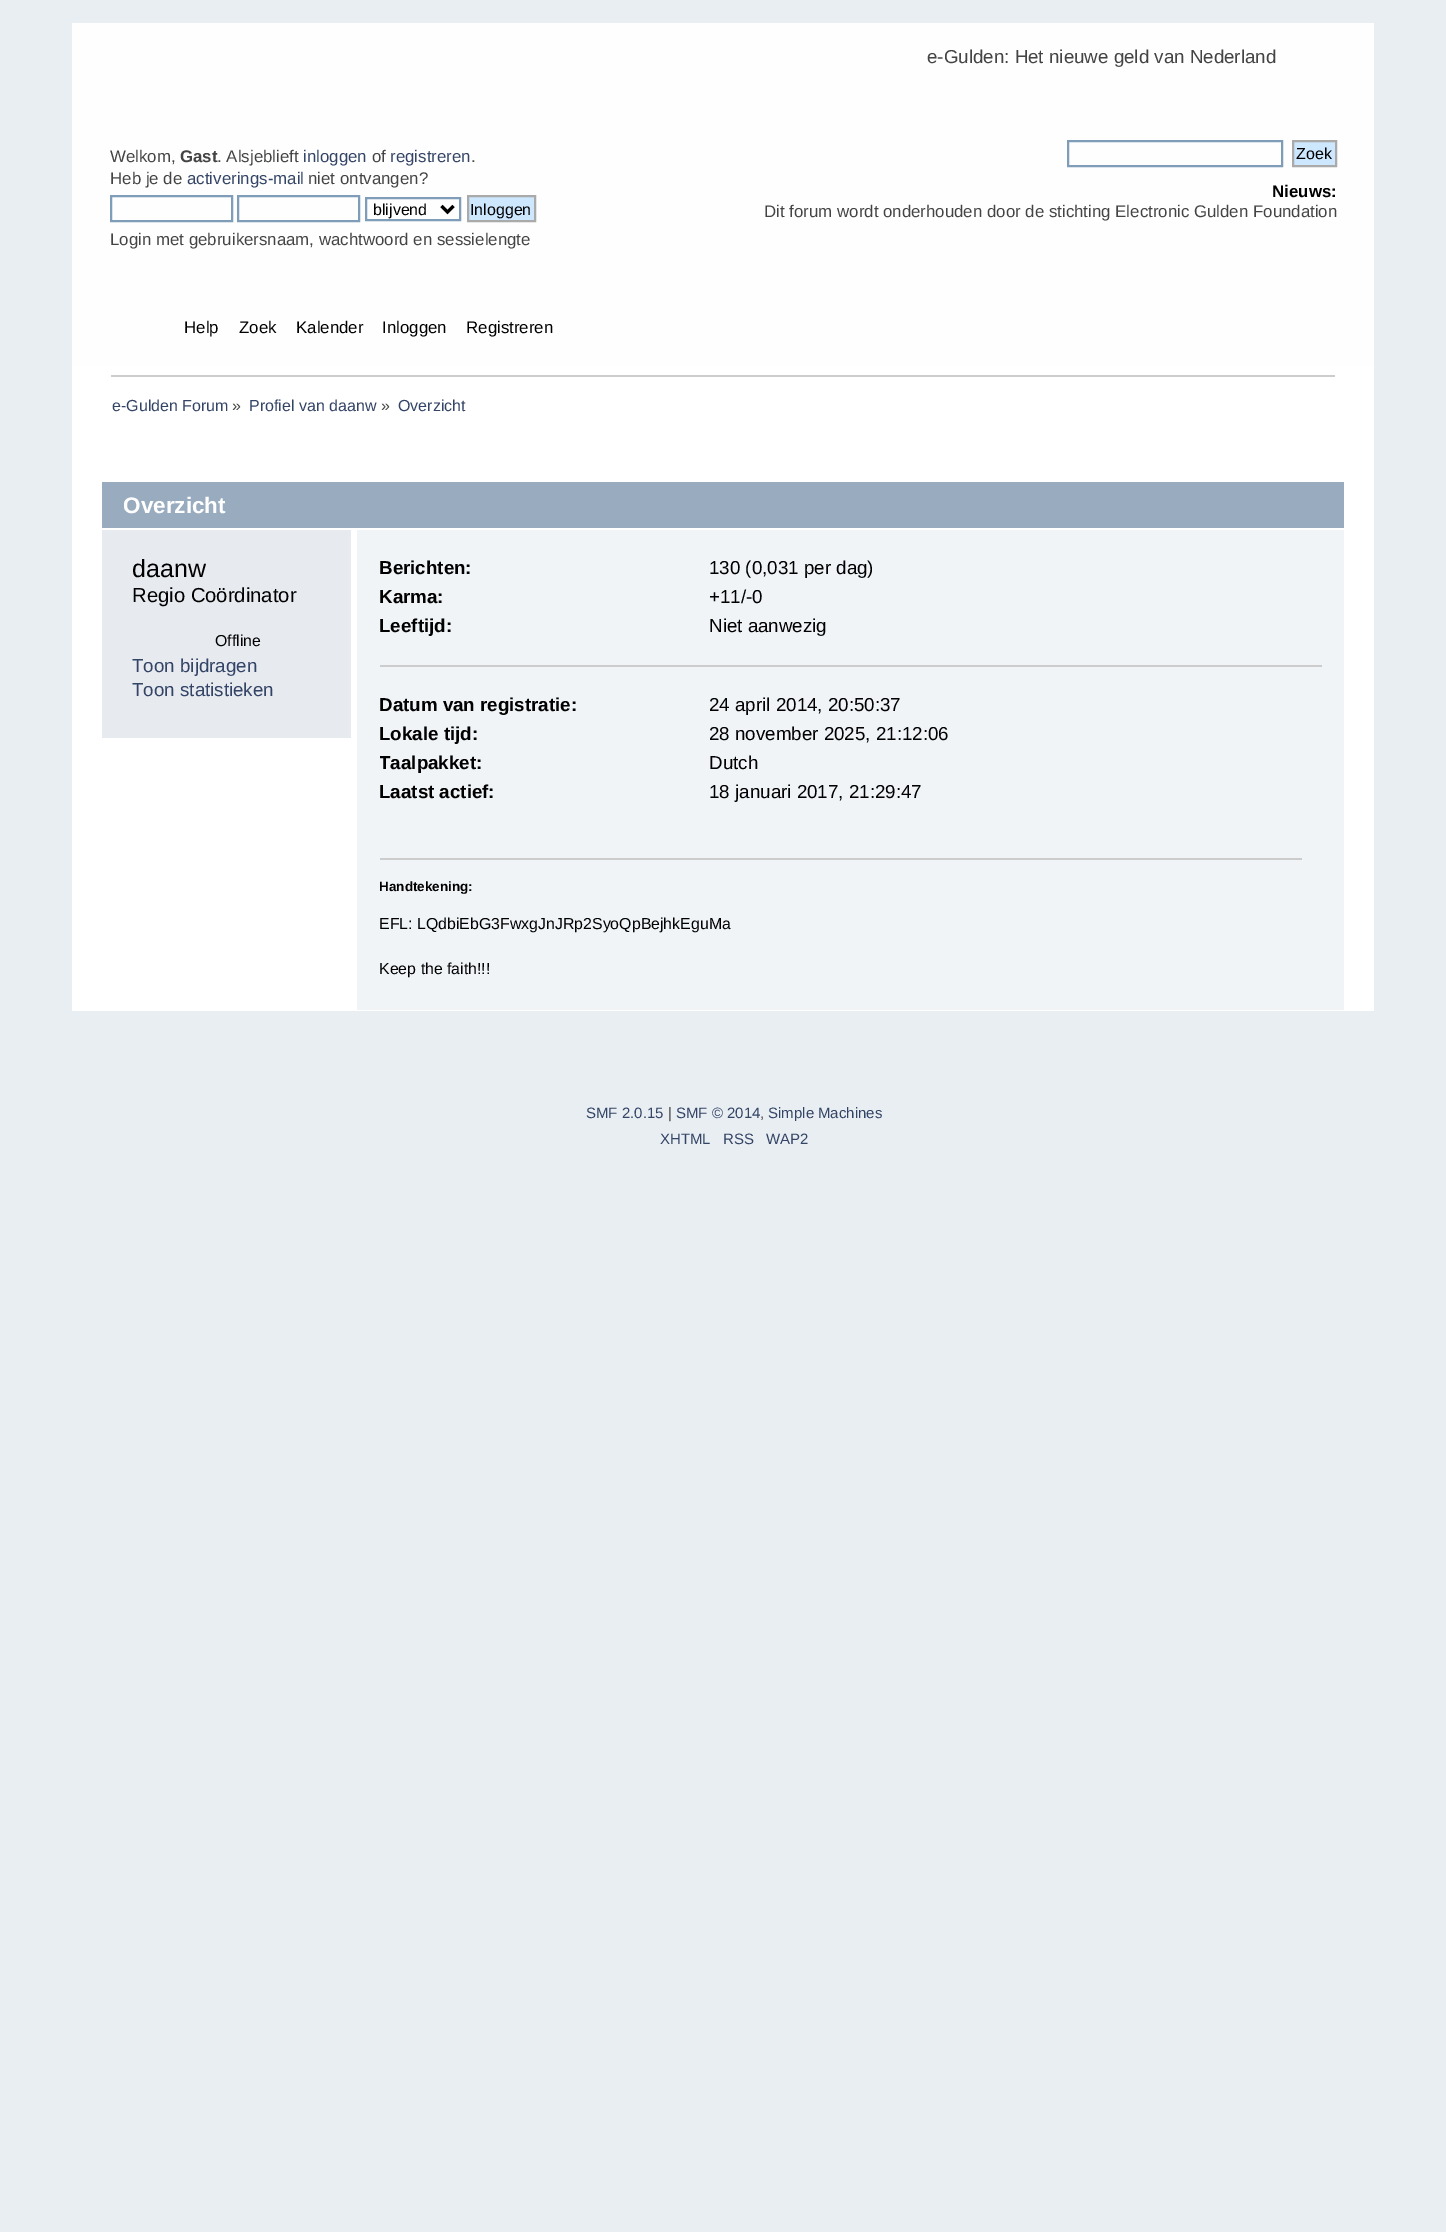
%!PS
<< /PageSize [1446 2232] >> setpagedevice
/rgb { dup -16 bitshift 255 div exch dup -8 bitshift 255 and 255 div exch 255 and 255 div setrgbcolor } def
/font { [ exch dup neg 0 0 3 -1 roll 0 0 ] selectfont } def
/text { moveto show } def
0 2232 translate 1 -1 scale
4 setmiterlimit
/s1 { /LiberationSans-Regular 18.75 font 16#444444 rgb } def
/s2 { /LiberationSans-Regular 16.85 font 16#444444 rgb } def
/s3 { /LiberationSans-Bold 16.85 font 16#444444 rgb } def
/s4 { /LiberationSans-Regular 16.85 font 16#334466 rgb } def
/s5 { /LiberationSans-Regular 16 font 16#000000 rgb } def
/s6 { /LiberationSans-Bold 16.85 font 16#000000 rgb } def
/s7 { /LiberationSans-Regular 16.85 font 16#000000 rgb } def
/s8 { /LiberationSans-Regular 16 font 16#334466 rgb } def
/s9 { /LiberationSans-Regular 16 font 16#444444 rgb } def
/s10 { /LiberationSans-Bold 22.5 font 16#FFFFFF rgb } def
/s11 { /LiberationSans-Regular 25 font 16#000000 rgb } def
/s12 { /LiberationSans-Regular 20.25 font 16#000000 rgb } def
/s13 { /LiberationSans-Regular 15.9 font 16#000000 rgb } def
/s14 { /LiberationSans-Regular 18.75 font 16#334466 rgb } def
/s15 { /LiberationSans-Bold 18.75 font 16#000000 rgb } def
/s16 { /LiberationSans-Regular 18.75 font 16#000000 rgb } def
/s17 { /LiberationSans-Bold 13.5 font 16#000000 rgb } def
/s18 { /LiberationSans-Regular 15 font 16#334466 rgb } def
/s19 { /LiberationSans-Regular 15 font 16#444444 rgb } def
16#E9EEF2 rgb
0 0 1446 2232 rectfill
16#FEFEFE rgb
72 23 1302 343 rectfill
s1
(e-Gulden: Het nieuwe geld van Nederland) 927 63 text
s2
(Welkom,) 110 162 text
s3
(Gast) 180 162 text
s2
(. Alsjeblieft) 217 162 text
s4
(inloggen) 303 162 text
s2
(of) 372 162 text
s4
(registreren) 390 162 text
s2
(.) 471 162 text
(Heb je de) 110 184 text
s4
(activerings-mail) 187 184 text
s2
(niet ontvangen?) 308 184 text
16#7F9DB9 rgb
2 setlinewidth
111 196 121 25 rectstroke
238 196 121 25 rectstroke
366 198 94 22 rectstroke
16#000000 rgb
3 setlinewidth
441.5 206 moveto 447.5 212 lineto 453.5 206 lineto stroke
s5
(blijvend) 373 215 text
16#CDE7FF rgb
468 196 moveto 535 196 lineto 535 221 lineto 468 221 lineto closepath gsave fill grestore
16#AAAAAA rgb
2 setlinewidth
stroke
s5
(Inloggen) 470 215 text
s2
(Login met gebruikersnaam, wachtwoord en sessielengte) 110 245 text
16#7F9DB9 rgb
1068 141 214 25 rectstroke
16#CDE7FF rgb
1293 141 moveto 1336 141 lineto 1336 166 lineto 1293 166 lineto closepath gsave fill grestore
16#AAAAAA rgb
stroke
s5
(Zoek) 1296 159 text
s6
(Nieuws:) 1272 197 text
s2
(Dit forum wordt onderhouden door de stichting Electronic Gulden Foundation) 764 217 text
s7
(Help) 184 333 text
(Zoek) 239 333 text
(Kalender) 296 333 text
(Inloggen) 382 333 text
(Registreren) 466 333 text
16#FFFFFF rgb
72 366 1302 645 rectfill
16#CCCCCC rgb
111 375 1224 2 rectfill
s8
(e-Gulden Forum) 112 411 text
s9
(») 232 411 text
s8
(Profiel van daanw) 249 411 text
s9
(») 381 411 text
s8
(Overzicht) 398 411 text
16#99ABBF rgb
102 482 1242 46 rectfill
s10
(Overzicht) 123 513 text
16#E7EAEF rgb
102 530 249 208 rectfill
s11
(daanw) 132 577 text
s12
(Regio Coördinator) 132 602 text
s13
(Offline) 215 646 text
s14
(Toon bijdragen) 132 672 text
(Toon statistieken) 132 696 text
16#F0F4F7 rgb
357 530 987 480 rectfill
16#CCCCCC rgb
380 665 942 2 rectfill
s15
(Berichten:) 379 574 text
s16
(130 \(0,031 per dag\)) 709 574 text
s15
(Karma:) 379 603 text
s16
(+11/-0) 709 603 text
s15
(Leeftijd:) 379 632 text
s16
(Niet aanwezig) 709 632 text
s15
(Datum van registratie:) 379 711 text
s16
(24 april 2014, 20:50:37) 709 711 text
s15
(Lokale tijd:) 379 740 text
s16
(28 november 2025, 21:12:06) 709 740 text
gsave
380 693 942 138 rectclip
s15
(Taalpakket:) 379 769 text
grestore
(Dutch) 709 769 text
s15
(Laatst actief:) 379 798 text
s16
(18 januari 2017, 21:29:47) 709 798 text
16#CCCCCC rgb
380 858 922 2 rectfill
s17
(Handtekening:) 379 891 text
s13
(EFL: LQdbiEbG3FwxgJnJRp2SyoQpBejhkEguMa) 379 929 text
(Keep the faith!!!) 379 974 text
s18
(SMF 2.0.15) 586 1118 text
s19
(|) 668 1118 text
s18
(SMF © 2014) 676 1118 text
s19
(,) 760 1118 text
s18
(Simple Machines) 768 1118 text
(XHTML) 660 1144 text
(RSS) 723 1144 text
(WAP2) 766 1144 text
showpage
